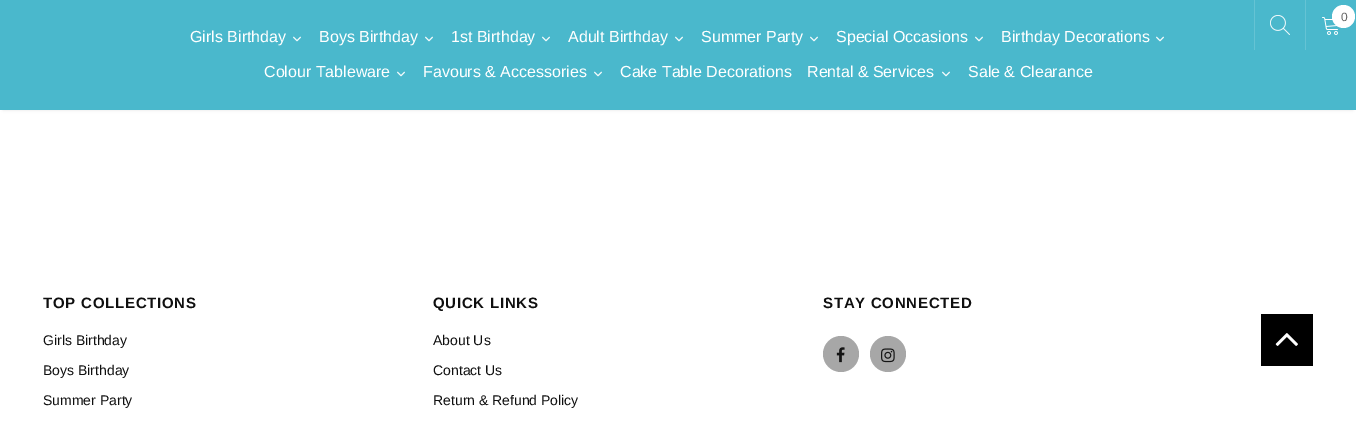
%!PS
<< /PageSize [1356 431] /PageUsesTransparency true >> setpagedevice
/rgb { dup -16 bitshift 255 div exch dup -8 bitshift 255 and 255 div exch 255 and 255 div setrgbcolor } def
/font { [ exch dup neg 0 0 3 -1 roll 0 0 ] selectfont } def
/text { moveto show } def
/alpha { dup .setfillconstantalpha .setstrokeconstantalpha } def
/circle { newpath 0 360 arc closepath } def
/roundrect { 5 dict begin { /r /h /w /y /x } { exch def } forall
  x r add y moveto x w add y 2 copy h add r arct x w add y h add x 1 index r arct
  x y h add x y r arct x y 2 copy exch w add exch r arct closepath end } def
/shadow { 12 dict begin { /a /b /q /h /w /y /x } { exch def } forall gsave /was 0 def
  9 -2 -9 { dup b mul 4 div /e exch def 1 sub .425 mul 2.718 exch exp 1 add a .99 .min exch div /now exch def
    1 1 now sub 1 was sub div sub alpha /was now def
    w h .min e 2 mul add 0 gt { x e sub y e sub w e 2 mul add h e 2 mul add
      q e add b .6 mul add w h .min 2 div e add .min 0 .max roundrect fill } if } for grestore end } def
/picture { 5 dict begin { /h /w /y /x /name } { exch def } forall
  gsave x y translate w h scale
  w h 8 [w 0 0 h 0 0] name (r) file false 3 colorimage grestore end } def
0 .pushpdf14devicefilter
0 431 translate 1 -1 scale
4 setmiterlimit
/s1 { /LiberationSans-Regular 12 font 16#646464 rgb } def
/s2 { /LiberationSans-Regular 16 font 16#FFFFFF rgb } def
/s3 { /LiberationSans-Regular 14 font 16#0F0F0F rgb } def
16#FFFFFF rgb
0 0 1356 431 rectfill
16#000000 rgb
3 6 1350 104 0 1.5 0.1 shadow
16#4AB8CC rgb
0 0 1356 110 rectfill
16#65C3D4 rgb
1254 0 1 50 rectfill
(pic1.raw) 1270 15 20 20 picture
1305 0 1 50 rectfill
(pic2.raw) 1322 17 16 18 picture
16#FFFFFF rgb
1343.5 16.5 11.5 circle fill
s1
(0) 1341 21 text
s2
(Girls Birthday) 190 42 text
(pic3.raw) 293 36 8 6 picture
(Boys Birthday) 319 42 text
(pic3.raw) 425 36 8 6 picture
(1st Birthday) 451 42 text
(pic3.raw) 542 36 8 6 picture
(Adult Birthday) 568 42 text
(pic3.raw) 675 36 8 6 picture
(Summer Party) 701 42 text
(pic3.raw) 810 36 8 6 picture
(Special Occasions) 836 42 text
(pic3.raw) 975 36 8 6 picture
(Birthday Decorations) 1001 42 text
(pic3.raw) 1156 36 8 6 picture
(Colour Tableware) 264 77 text
(pic3.raw) 397 71 8 6 picture
(Favours & Accessories) 423 77 text
(pic3.raw) 594 71 8 6 picture
(Cake Table Decorations) 620 77 text
(Rental & Services) 807 77 text
(pic3.raw) 942 71 8 6 picture
(Sale & Clearance) 968 77 text
/LiberationSans-Bold 15 font
16#0F0F0F rgb
43 308 moveto 0.75 0 (TOP COLLECTIONS) ashow
s3
(Girls Birthday) 43 345 text
(Boys Birthday) 43 375 text
(Summer Party) 43 405 text
/LiberationSans-Bold 15 font
433 308 moveto 0.75 0 (QUICK LINKS) ashow
s3
(About Us) 433 345 text
(Contact Us) 433 375 text
(Return & Refund Policy) 433 405 text
/LiberationSans-Bold 15 font
823 308 moveto 0.75 0 (STAY CONNECTED) ashow
16#A7A7A7 rgb
841 354 18 circle fill
(pic4.raw) 836 347 9 16 picture
888 354 18 circle fill
(pic5.raw) 881 348 14 15 picture
16#000000 rgb
1261 314 52 52 rectfill
(pic6.raw) 1275 333 23 13 picture
.poppdf14devicefilter showpage
